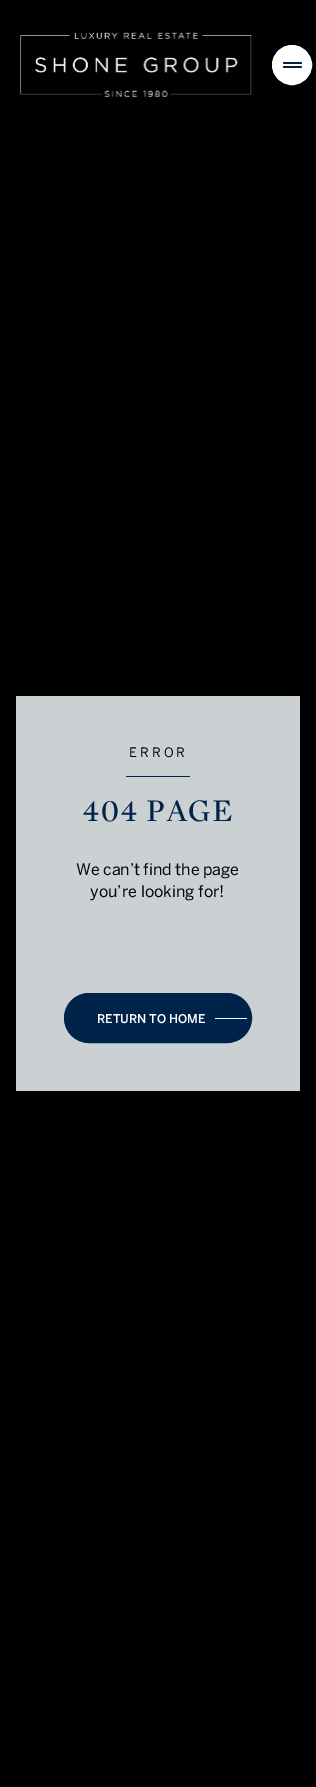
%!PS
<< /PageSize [316 1787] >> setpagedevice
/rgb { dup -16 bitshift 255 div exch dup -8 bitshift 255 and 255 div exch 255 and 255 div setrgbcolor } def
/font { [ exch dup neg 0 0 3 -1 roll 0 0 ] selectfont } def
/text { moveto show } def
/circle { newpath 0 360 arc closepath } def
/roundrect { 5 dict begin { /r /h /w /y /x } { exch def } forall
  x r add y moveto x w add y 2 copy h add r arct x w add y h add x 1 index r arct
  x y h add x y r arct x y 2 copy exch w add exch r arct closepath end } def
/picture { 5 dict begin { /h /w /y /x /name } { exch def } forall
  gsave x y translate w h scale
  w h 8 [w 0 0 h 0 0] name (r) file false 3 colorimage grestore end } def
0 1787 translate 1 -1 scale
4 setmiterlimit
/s1 { /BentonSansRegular-Regular 16 font 16#080208 rgb } def
/s2 { /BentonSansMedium-Medium 12 font 16#FFFFFF rgb } def
16#000000 rgb
0 0 316 1787 rectfill
(pic1.raw) 20 32 232 66 picture
16#FFFFFF rgb
292 65 19.5 circle gsave fill grestore
stroke
16#002349 rgb
283 62 19 2 1 roundrect fill
283 66 19 2 1 roundrect fill
16#CBD0D3 rgb
16 696 284 395 rectfill
/BentonSansRegular-Regular 13 font
16#080208 rgb
129 757 moveto 3 0 (ERROR) ashow
16#002349 rgb
126 776 64 1 rectfill
/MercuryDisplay-Regular 32 font
82 821 moveto -2 0 32 1.5 0 (404 PAGE) awidthshow
/BentonSansRegular-Regular 16 font
16#080208 rgb
76 875 moveto -0.5 0 32 (We can’t find the page) widthshow
(you’re looking for!) 90 897 text
16#002349 rgb
64.5 993.5 187 49 24.5 roundrect gsave fill grestore
stroke
s2
(RETURN TO HOME) 97 1023 text
215 1018 32 1 rectfill
showpage
